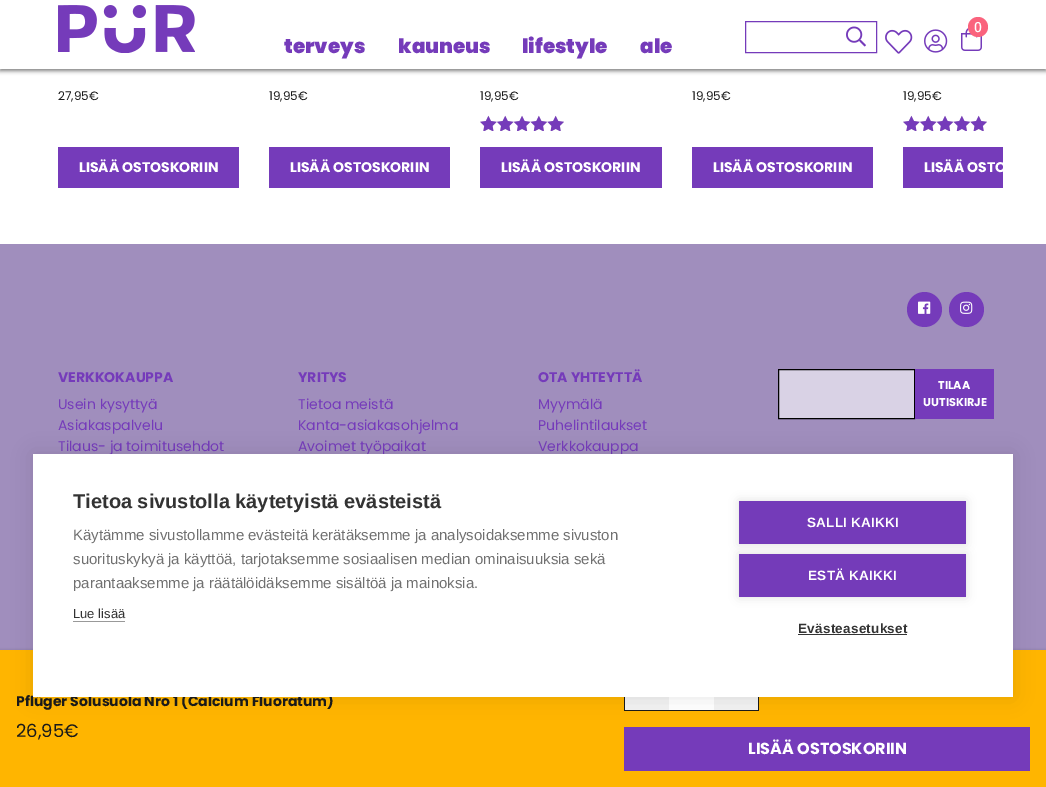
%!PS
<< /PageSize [1046 787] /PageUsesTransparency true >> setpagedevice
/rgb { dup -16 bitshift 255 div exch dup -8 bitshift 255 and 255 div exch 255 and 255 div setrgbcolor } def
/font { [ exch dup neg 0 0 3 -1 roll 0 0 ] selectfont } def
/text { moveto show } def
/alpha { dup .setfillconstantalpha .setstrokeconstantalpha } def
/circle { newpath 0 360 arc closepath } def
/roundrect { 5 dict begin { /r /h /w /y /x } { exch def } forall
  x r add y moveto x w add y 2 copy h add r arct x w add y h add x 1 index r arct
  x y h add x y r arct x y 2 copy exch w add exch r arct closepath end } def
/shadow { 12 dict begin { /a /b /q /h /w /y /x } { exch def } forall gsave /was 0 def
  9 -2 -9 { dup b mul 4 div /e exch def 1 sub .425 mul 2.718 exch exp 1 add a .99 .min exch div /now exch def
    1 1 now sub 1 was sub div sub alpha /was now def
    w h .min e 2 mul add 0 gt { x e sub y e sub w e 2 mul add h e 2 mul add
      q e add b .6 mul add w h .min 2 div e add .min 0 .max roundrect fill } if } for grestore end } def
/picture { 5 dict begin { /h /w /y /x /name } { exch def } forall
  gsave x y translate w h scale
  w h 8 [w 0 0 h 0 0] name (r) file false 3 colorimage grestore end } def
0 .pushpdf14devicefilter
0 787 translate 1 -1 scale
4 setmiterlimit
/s1 { /Heebo-Medium 14 font 16#FFFFFF rgb } def
/s2 { /Poppins-Black 20 font 16#753BBA rgb } def
/s3 { /Poppins-Regular 12 font 16#1A1A1A rgb } def
/s4 { /Poppins-Bold 14 font 16#FFFFFF rgb } def
/s5 { /Poppins-Bold 14 font 16#1A1A1A rgb } def
/s6 { /Poppins-Regular 18 font 16#1A1A1A rgb } def
/s7 { /Poppins-Bold 16 font 16#FFFFFF rgb } def
/s8 { /Poppins-Bold 14 font 16#753BBA rgb } def
/s9 { /Poppins-Regular 14 font 16#753BBA rgb } def
/s10 { /Poppins-Bold 11.25 font 16#FFFFFF rgb } def
/s11 { /LiberationSans-Bold 20 font 16#333333 rgb } def
/s12 { /LiberationSans-Regular 15 font 16#707070 rgb } def
/s13 { /LiberationSans-Regular 13 font 16#333333 rgb } def
16#FFFFFF rgb
0 0 1046 787 rectfill
16#000000 rgb
0 2 1046 69 0 2 0.5 shadow
16#FFFFFF rgb
0 0 1046 69 rectfill
16#753BBA rgb
745.5 21.5 131 31 rectstroke
(pic1.raw) 846 26 20 21 picture
(pic2.raw) 961 27 21 24 picture
16#FA637D rgb
978 27 10 circle fill
s1
(0) 974 32 text
(pic3.raw) 58 5 137 48 picture
s2
(terveys) 284 53 text
(kauneus) 398 53 text
(lifestyle) 522 53 text
(ale) 640 53 text
(pic4.raw) 885 29 28 25 picture
(pic5.raw) 924 29 24 24 picture
s3
(27,95€) 58 100 text
16#753BBA rgb
58 147 181 41 rectfill
s4
(LISÄÄ OSTOSKORIIN) 79 172 text
s3
(19,95€) 269 100 text
16#753BBA rgb
269 147 181 41 rectfill
s4
(LISÄÄ OSTOSKORIIN) 290 172 text
s3
(19,95€) 480 100 text
(pic7.raw) 480 116 84 15 picture
(pic6.raw) 480 115 84 16 picture
16#753BBA rgb
480 147 182 41 rectfill
s4
(LISÄÄ OSTOSKORIIN) 501 172 text
s3
(19,95€) 692 100 text
16#753BBA rgb
692 147 181 41 rectfill
s4
(LISÄÄ OSTOSKORIIN) 713 172 text
s3
(19,95€) 903 100 text
(pic7.raw) 903 116 84 15 picture
(pic6.raw) 903 115 84 16 picture
16#753BBA rgb
903 147 100 41 rectfill
gsave
43 0 960 196 rectclip
s4
(LISÄÄ OSTO) 924 172 text
grestore
16#A08EBD rgb
0 244 1046 406 rectfill
16#000000 rgb
0 652 1046 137 0 2 0.5 shadow
16#FFB500 rgb
0 650 1046 137 rectfill
s5
(Pflüger Solusuola Nro 1 \(Calcium Fluoratum\)) 16 706 text
s6
(26,95€) 16 737 text
16#FFFFFF rgb
669 697 45 13 rectfill
16#1A1A1A rgb
624 710 90 1 rectfill
16#F2F2F2 rgb
625 697 44 13 rectfill
16#1A1A1A rgb
624 697 1 14 rectfill
16#F2F2F2 rgb
714 697 44 13 rectfill
16#1A1A1A rgb
758 697 1 14 rectfill
714 710 45 1 rectfill
16#753BBA rgb
624 727 406 44 rectfill
s7
(LISÄÄ OSTOSKORIIN) 748 754 text
16#753BBA rgb
924.5 309.5 17.5 circle fill
(pic8.raw) 918 301 13 13 picture
966.5 309.5 17.5 circle fill
(pic9.raw) 960 301 13 13 picture
s8
(VERKKOKAUPPA) 58 382 text
s9
(Usein kysyttyä) 58 409 text
(Asiakaspalvelu) 58 430 text
(Tilaus- ja toimitusehdot) 58 451 text
s8
(YRITYS) 298 382 text
s9
(Tietoa meistä) 298 409 text
(Kanta-asiakasohjelma) 298 430 text
(Avoimet työpaikat) 298 451 text
s8
(OTA YHTEYTTÄ) 538 382 text
s9
(Myymälä) 538 409 text
(Puhelintilaukset) 538 430 text
(Verkkokauppa) 538 451 text
16#D9D2E5 rgb
778.5 369.5 moveto 914.5 369.5 lineto 914.5 418.5 lineto 778.5 418.5 lineto closepath gsave fill grestore
16#000000 rgb
stroke
16#753BBA rgb
915 369 79 50 rectfill
s10
(TILAA) 938 389 text
(UUTISKIRJE) 923 406 text
16#000000 rgb
33 454 980 243 0 10 0.1 shadow
16#FFFFFF rgb
33 454 980 243 rectfill
s11
(Tietoa sivustolla käytetyistä evästeistä) 73 508 text
s12
(Käytämme sivustollamme evästeitä kerätäksemme ja analysoidaksemme sivuston) 73 540 text
(suorituskykyä ja käyttöä, tarjotaksemme sosiaalisen median ominaisuuksia sekä) 73 564 text
(parantaaksemme ja räätälöidäksemme sisältöä ja mainoksia.) 73 588 text
s13
(Lue lisää) 73 618 text
16#999999 rgb
73 621 52 1 rectfill
16#000000 rgb
739 501 227 43 0 5 0.12 shadow
16#743BB9 rgb
739 501 227 43 rectfill
/LiberationSans-Bold 13.5 font
16#FFFFFF rgb
807 527 moveto 0.25 0 (SALLI KAIKKI) ashow
16#000000 rgb
739 554 227 43 0 5 0.12 shadow
16#743BB9 rgb
739 554 227 43 rectfill
16#FFFFFF rgb
808 580 moveto 0.25 0 (ESTÄ KAIKKI) ashow
16#333333 rgb
798 633 moveto 0.25 0 (Evästeasetukset) ashow
798 634 109 1 rectfill
.poppdf14devicefilter showpage
